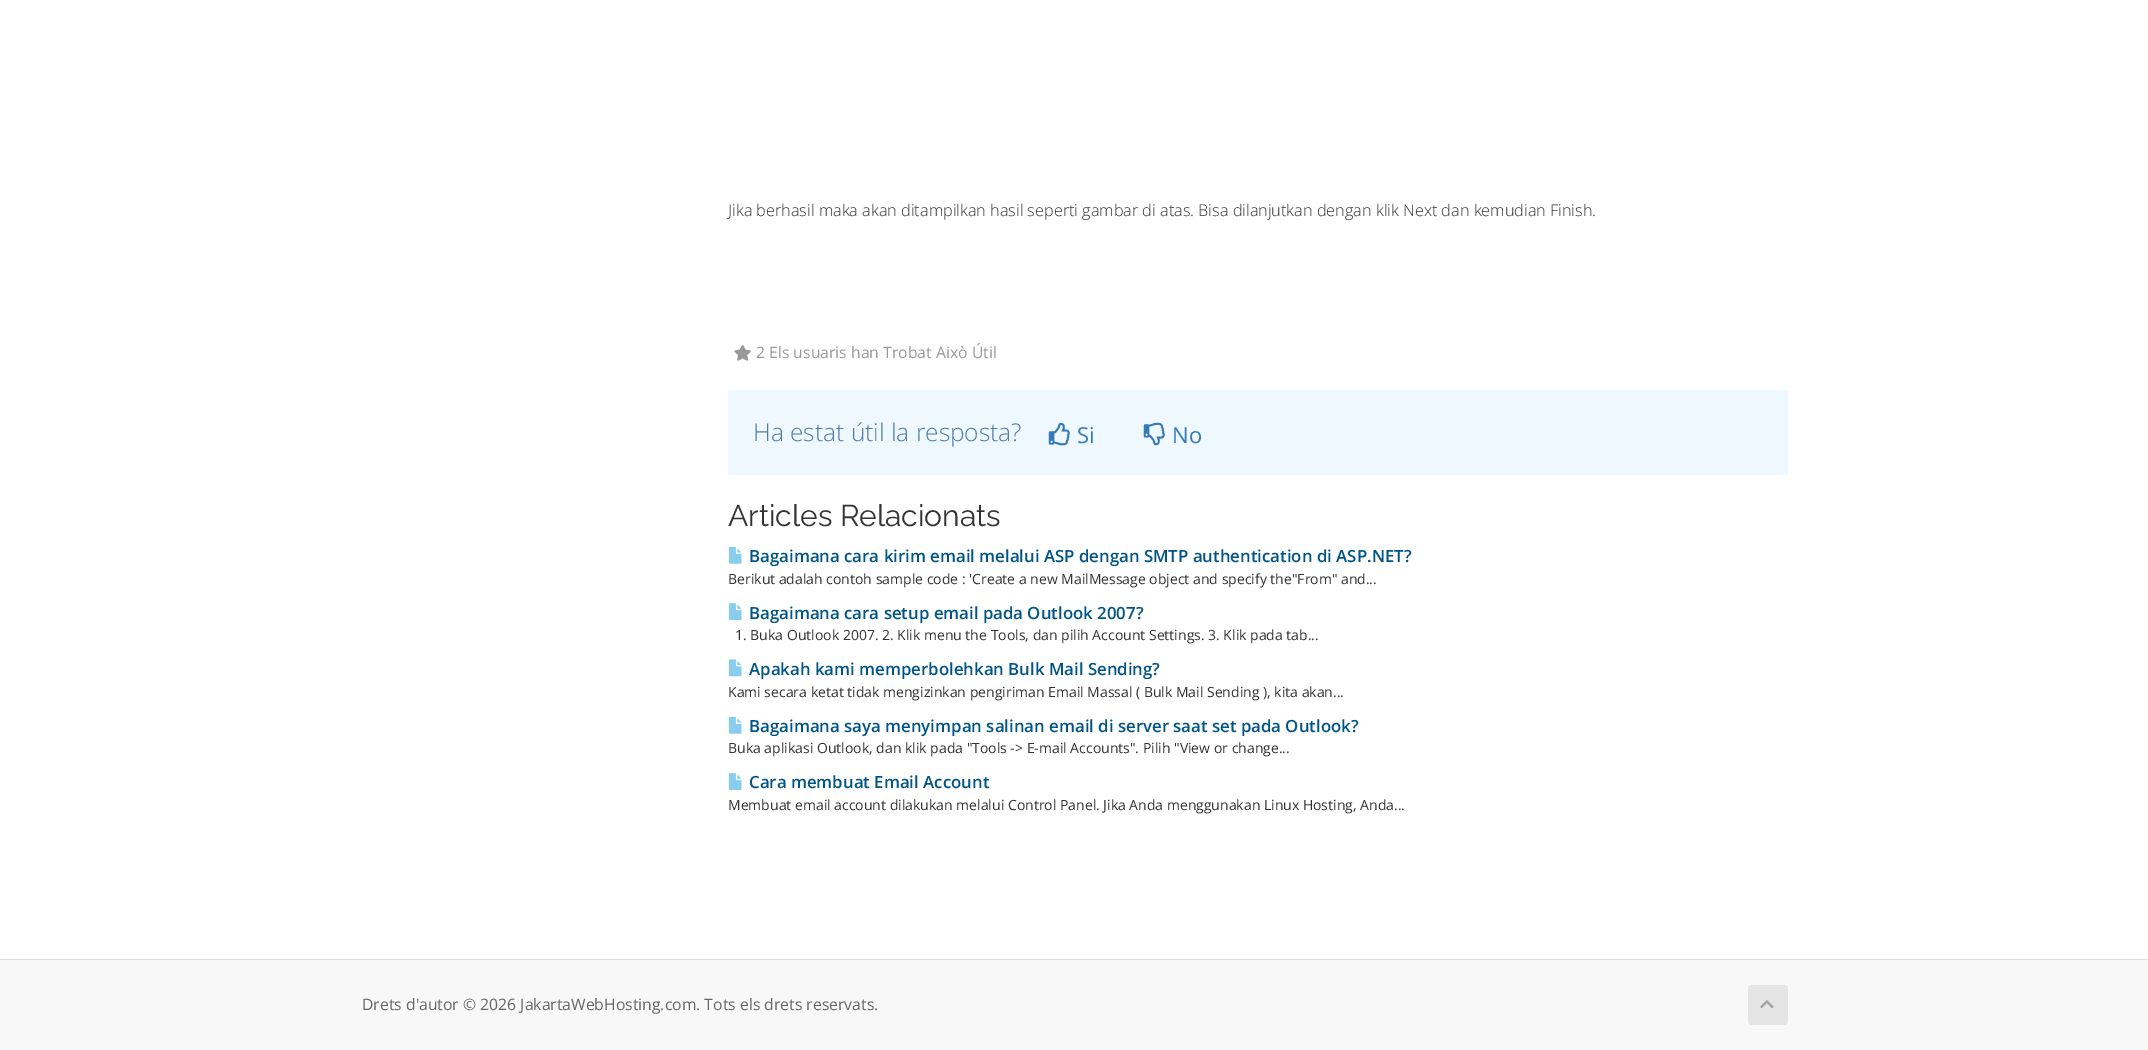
%!PS
<< /PageSize [2148 1050] >> setpagedevice
/rgb { dup -16 bitshift 255 div exch dup -8 bitshift 255 and 255 div exch 255 and 255 div setrgbcolor } def
/font { [ exch dup neg 0 0 3 -1 roll 0 0 ] selectfont } def
/text { moveto show } def
/roundrect { 5 dict begin { /r /h /w /y /x } { exch def } forall
  x r add y moveto x w add y 2 copy h add r arct x w add y h add x 1 index r arct
  x y h add x y r arct x y 2 copy exch w add exch r arct closepath end } def
/picture { 5 dict begin { /h /w /y /x /name } { exch def } forall
  gsave x y translate w h scale
  w h 8 [w 0 0 h 0 0] name (r) file false 3 colorimage grestore end } def
0 1050 translate 1 -1 scale
4 setmiterlimit
/s1 { /OpenSans-Light 16.25 font 16#333333 rgb } def
/s2 { /OpenSans-Regular 15.75 font 16#999999 rgb } def
/s3 { /OpenSans-Light 24.5 font 16#4D7CAB rgb } def
/s4 { /OpenSans-Regular 22 font 16#337AB7 rgb } def
/s5 { /Raleway-Regular 30 font 16#333333 rgb } def
/s6 { /OpenSans-SemiBold 16.8 font 16#005588 rgb } def
/s7 { /OpenSans-Regular 14 font 16#333333 rgb } def
/s8 { /OpenSans-Regular 15.75 font 16#666666 rgb } def
16#F8F8F8 rgb
0 0 2148 1050 rectfill
16#FFFFFF rgb
0 0 2148 959 rectfill
s1
(Jika berhasil maka akan ditampilkan hasil seperti gambar di atas. Bisa dilanjutkan dengan klik Next dan kemudian Finish.) 728 216 text
(pic1.raw) 734 345 17 16 picture
s2
(2 Els usuaris han Trobat Això Útil) 756 358 text
16#EFF7FF rgb
728 390 1060 85 rectfill
s3
(Ha estat útil la resposta?) 753 441 text
(pic2.raw) 1048 422 22 24 picture
s4
(Si) 1077 443 text
(pic3.raw) 1143 422 22 24 picture
(No) 1172 443 text
s5
(Articles Relacionats) 728 526 text
(pic4.raw) 728 546 14 18 picture
s6
(Bagaimana cara kirim email melalui ASP dengan SMTP authentication di ASP.NET?) 749 562 text
s7
(Berikut adalah contoh sample code : 'Create a new MailMessage object and specify the"From" and...) 728 584 text
(pic5.raw) 728 603 14 17 picture
s6
(Bagaimana cara setup email pada Outlook 2007?) 749 619 text
s7
(1. Buka Outlook 2007. 2. Klik menu the Tools, dan pilih Account Settings. 3. Klik pada tab...) 735 640 text
(pic6.raw) 728 659 14 18 picture
s6
(Apakah kami memperbolehkan Bulk Mail Sending?) 749 675 text
s7
(Kami secara ketat tidak mengizinkan pengiriman Email Massal \( Bulk Mail Sending \), kita akan...) 728 697 text
(pic4.raw) 728 716 14 18 picture
s6
(Bagaimana saya menyimpan salinan email di server saat set pada Outlook?) 749 732 text
s7
(Buka aplikasi Outlook, dan klik pada "Tools -> E-mail Accounts". Pilih "View or change...) 728 753 text
(pic5.raw) 728 773 14 17 picture
s6
(Cara membuat Email Account) 749 788 text
s7
(Membuat email account dilakukan melalui Control Panel. Jika Anda menggunakan Linux Hosting, Anda...) 728 810 text
16#DDDDDD rgb
0 959 2148 1 rectfill
s8
(Drets d'autor © 2026 JakartaWebHosting.com. Tots els drets reservats.) 362 1010 text
16#E5E5E5 rgb
1748 985 40 40 4 roundrect fill
(pic7.raw) 1760 1000 14 9 picture
showpage
